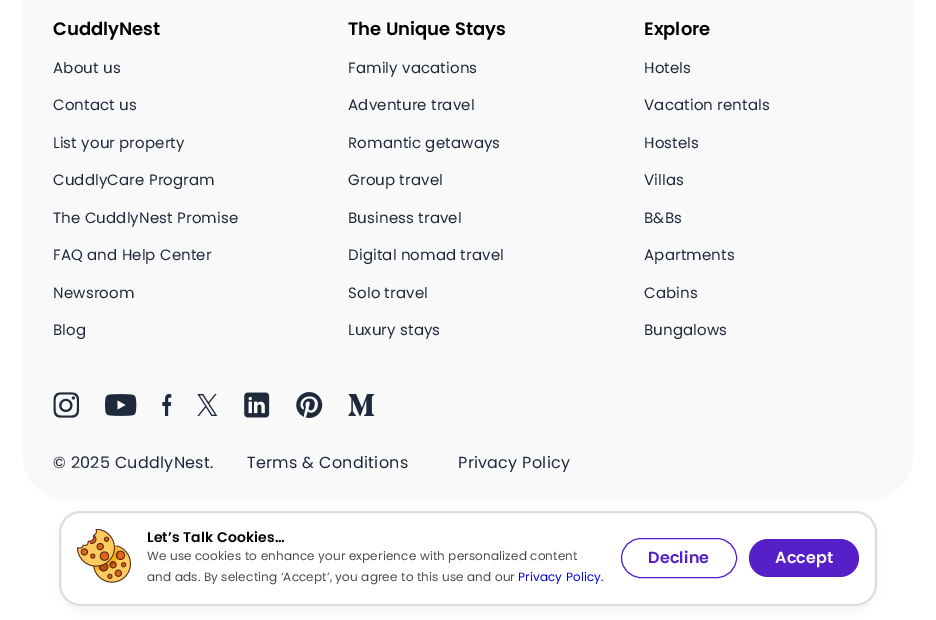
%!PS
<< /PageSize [936 620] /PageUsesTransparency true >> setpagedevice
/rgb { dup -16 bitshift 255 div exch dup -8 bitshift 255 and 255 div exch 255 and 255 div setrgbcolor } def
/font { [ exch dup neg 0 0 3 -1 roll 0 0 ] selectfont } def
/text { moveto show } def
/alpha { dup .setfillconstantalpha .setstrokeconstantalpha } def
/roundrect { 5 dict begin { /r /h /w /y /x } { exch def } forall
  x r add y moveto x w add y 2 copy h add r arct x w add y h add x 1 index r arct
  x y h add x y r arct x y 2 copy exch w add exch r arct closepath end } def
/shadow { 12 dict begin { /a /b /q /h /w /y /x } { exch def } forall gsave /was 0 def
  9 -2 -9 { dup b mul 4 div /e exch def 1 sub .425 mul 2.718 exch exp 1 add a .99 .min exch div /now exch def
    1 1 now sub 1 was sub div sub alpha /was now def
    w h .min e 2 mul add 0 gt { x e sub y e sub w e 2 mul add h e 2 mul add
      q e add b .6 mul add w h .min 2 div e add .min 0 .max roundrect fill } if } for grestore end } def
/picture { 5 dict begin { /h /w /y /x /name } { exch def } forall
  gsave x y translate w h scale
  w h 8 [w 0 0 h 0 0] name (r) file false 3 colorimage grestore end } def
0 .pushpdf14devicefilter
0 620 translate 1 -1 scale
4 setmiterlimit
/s1 { /Poppins-SemiBold 18 font 16#000000 rgb } def
16#FFFFFF rgb
0 0 936 620 rectfill
16#FAF9F9 rgb
23 -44 890 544 44 roundrect fill
s1
(CuddlyNest) 53 35 text
/Poppins-Regular 15 font
16#1E2A3B rgb
53 73 moveto 0.15 0 (About us) ashow
53 110 moveto 0.15 0 (Contact us) ashow
53 148 moveto 0.15 0 (List your property) ashow
53 185 moveto 0.15 0 (CuddlyCare Program) ashow
53 223 moveto 0.15 0 (The CuddlyNest Promise) ashow
53 260 moveto 0.15 0 (FAQ and Help Center) ashow
53 298 moveto 0.15 0 (Newsroom) ashow
53 335 moveto 0.15 0 (Blog) ashow
s1
(The Unique Stays) 348 35 text
/Poppins-Regular 15 font
16#1E2A3B rgb
348 73 moveto 0.15 0 (Family vacations) ashow
348 110 moveto 0.15 0 (Adventure travel) ashow
348 148 moveto 0.15 0 (Romantic getaways) ashow
348 185 moveto 0.15 0 (Group travel) ashow
348 223 moveto 0.15 0 (Business travel) ashow
348 260 moveto 0.15 0 (Digital nomad travel) ashow
348 298 moveto 0.15 0 (Solo travel) ashow
348 335 moveto 0.15 0 (Luxury stays) ashow
s1
(Explore) 644 35 text
/Poppins-Regular 15 font
16#1E2A3B rgb
644 73 moveto 0.15 0 (Hotels) ashow
644 110 moveto 0.15 0 (Vacation rentals) ashow
644 148 moveto 0.15 0 (Hostels) ashow
644 185 moveto 0.15 0 (Villas) ashow
644 223 moveto 0.15 0 (B&Bs) ashow
644 260 moveto 0.15 0 (Apartments) ashow
644 298 moveto 0.15 0 (Cabins) ashow
644 335 moveto 0.15 0 (Bungalows) ashow
(pic1.raw) 53 392 27 26 picture
(pic2.raw) 105 394 32 22 picture
(pic3.raw) 162 394 10 22 picture
(pic4.raw) 197 394 21 22 picture
(pic5.raw) 244 392 26 26 picture
(pic6.raw) 296 392 27 26 picture
(pic7.raw) 348 394 27 22 picture
/Poppins-Regular 16 font
53 468 moveto 0.3 0 (© 2025 CuddlyNest.) ashow
247 468 moveto 0.3 0 (Terms & Conditions) ashow
458 468 moveto 0.3 0 (Privacy Policy) ashow
16#18274B rgb
66 524 804 81 14 7 0.12 shadow
16#FFFFFF rgb
60.5 512.5 815 92 19.5 roundrect gsave fill grestore
16#D9D6DC rgb
stroke
16#561FC8 rgb
621.5 538.5 115 39 19.5 roundrect stroke
749 539 110 38 19 roundrect fill
16#DFE2E5 rgb
59.5 511.5 817 94 20.5 roundrect stroke
(pic8.raw) 77 529 54 54 picture
/Poppins-SemiBold 14 font
16#000000 rgb
147 542 moveto 0.15 0 (Let’s Talk Cookies…) ashow
/Poppins-Regular 12 font
16#4C4851 rgb
147 560 moveto 0.15 0 (We use cookies to enhance your experience with personalized content) ashow
147 581 moveto 0.15 0 (and ads. By selecting ‘Accept’, you agree to this use and our) ashow
16#0000EE rgb
518 581 moveto 0.15 0 (Privacy Policy.) ashow
/Poppins-SemiBold 16 font
16#561FC8 rgb
648 563 moveto 0.15 0 (Decline) ashow
16#F7F7F8 rgb
775 563 moveto 0.15 0 (Accept) ashow
.poppdf14devicefilter showpage
